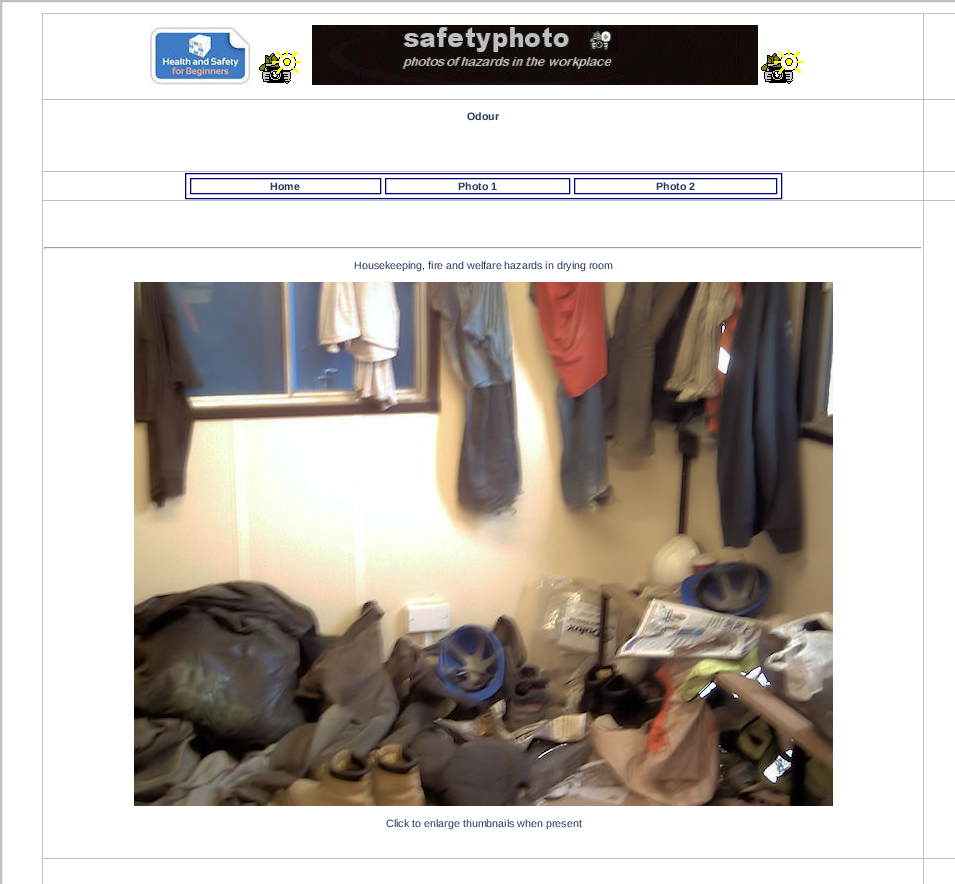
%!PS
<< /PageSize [955 884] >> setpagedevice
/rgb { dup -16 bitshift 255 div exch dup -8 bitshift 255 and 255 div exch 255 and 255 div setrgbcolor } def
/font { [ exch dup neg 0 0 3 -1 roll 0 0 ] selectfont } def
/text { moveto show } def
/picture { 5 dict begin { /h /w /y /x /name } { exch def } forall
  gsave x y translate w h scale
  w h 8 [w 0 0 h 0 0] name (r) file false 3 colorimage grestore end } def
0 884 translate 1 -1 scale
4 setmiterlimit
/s1 { /LiberationSans-Bold 10.7 font 16#273A5B rgb } def
/s2 { /LiberationSans-Regular 10.7 font 16#273A5B rgb } def
16#FFFFFF rgb
0 0 955 884 rectfill
16#C0C0C0 rgb
0.5 0.5 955 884 rectstroke
1.5 1.5 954 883 rectstroke
42 13 913 1 rectfill
42 13 1 871 rectfill
(pic1.raw) 150 27 100 58 picture
(pic2.raw) 259 50 43 34 picture
(pic3.raw) 312 25 446 60 picture
(pic2.raw) 761 50 43 34 picture
923 99 32 1 rectfill
923 171 32 1 rectfill
923 200 32 1 rectfill
923 858 32 1 rectfill
923 858 1 26 rectfill
42 858 882 1 rectfill
923 200 1 659 rectfill
42 200 882 1 rectfill
923 171 1 30 rectfill
42 171 882 1 rectfill
923 99 1 73 rectfill
42 99 882 1 rectfill
923 13 1 87 rectfill
s1
(Odour) 467 120 text
16#000080 rgb
185.5 173.5 596 25 rectstroke
190.5 178.5 190 15 rectstroke
s1
(Home) 270 190 text
16#000080 rgb
385.5 178.5 184 15 rectstroke
s1
(Photo 1) 458 190 text
16#000080 rgb
574.5 178.5 202 15 rectstroke
s1
(Photo 2) 656 190 text
16#9F9F9F rgb
44 247 878 1 rectfill
16#EEEEEE rgb
921 247 1 2 rectfill
44 248 878 1 rectfill
16#9F9F9F rgb
44 247 1 2 rectfill
s2
(Housekeeping, fire and welfare hazards in drying room) 354 269 text
(pic4.raw) 134 282 699 524 picture
(Click to enlarge thumbnails when present) 386 827 text
showpage
